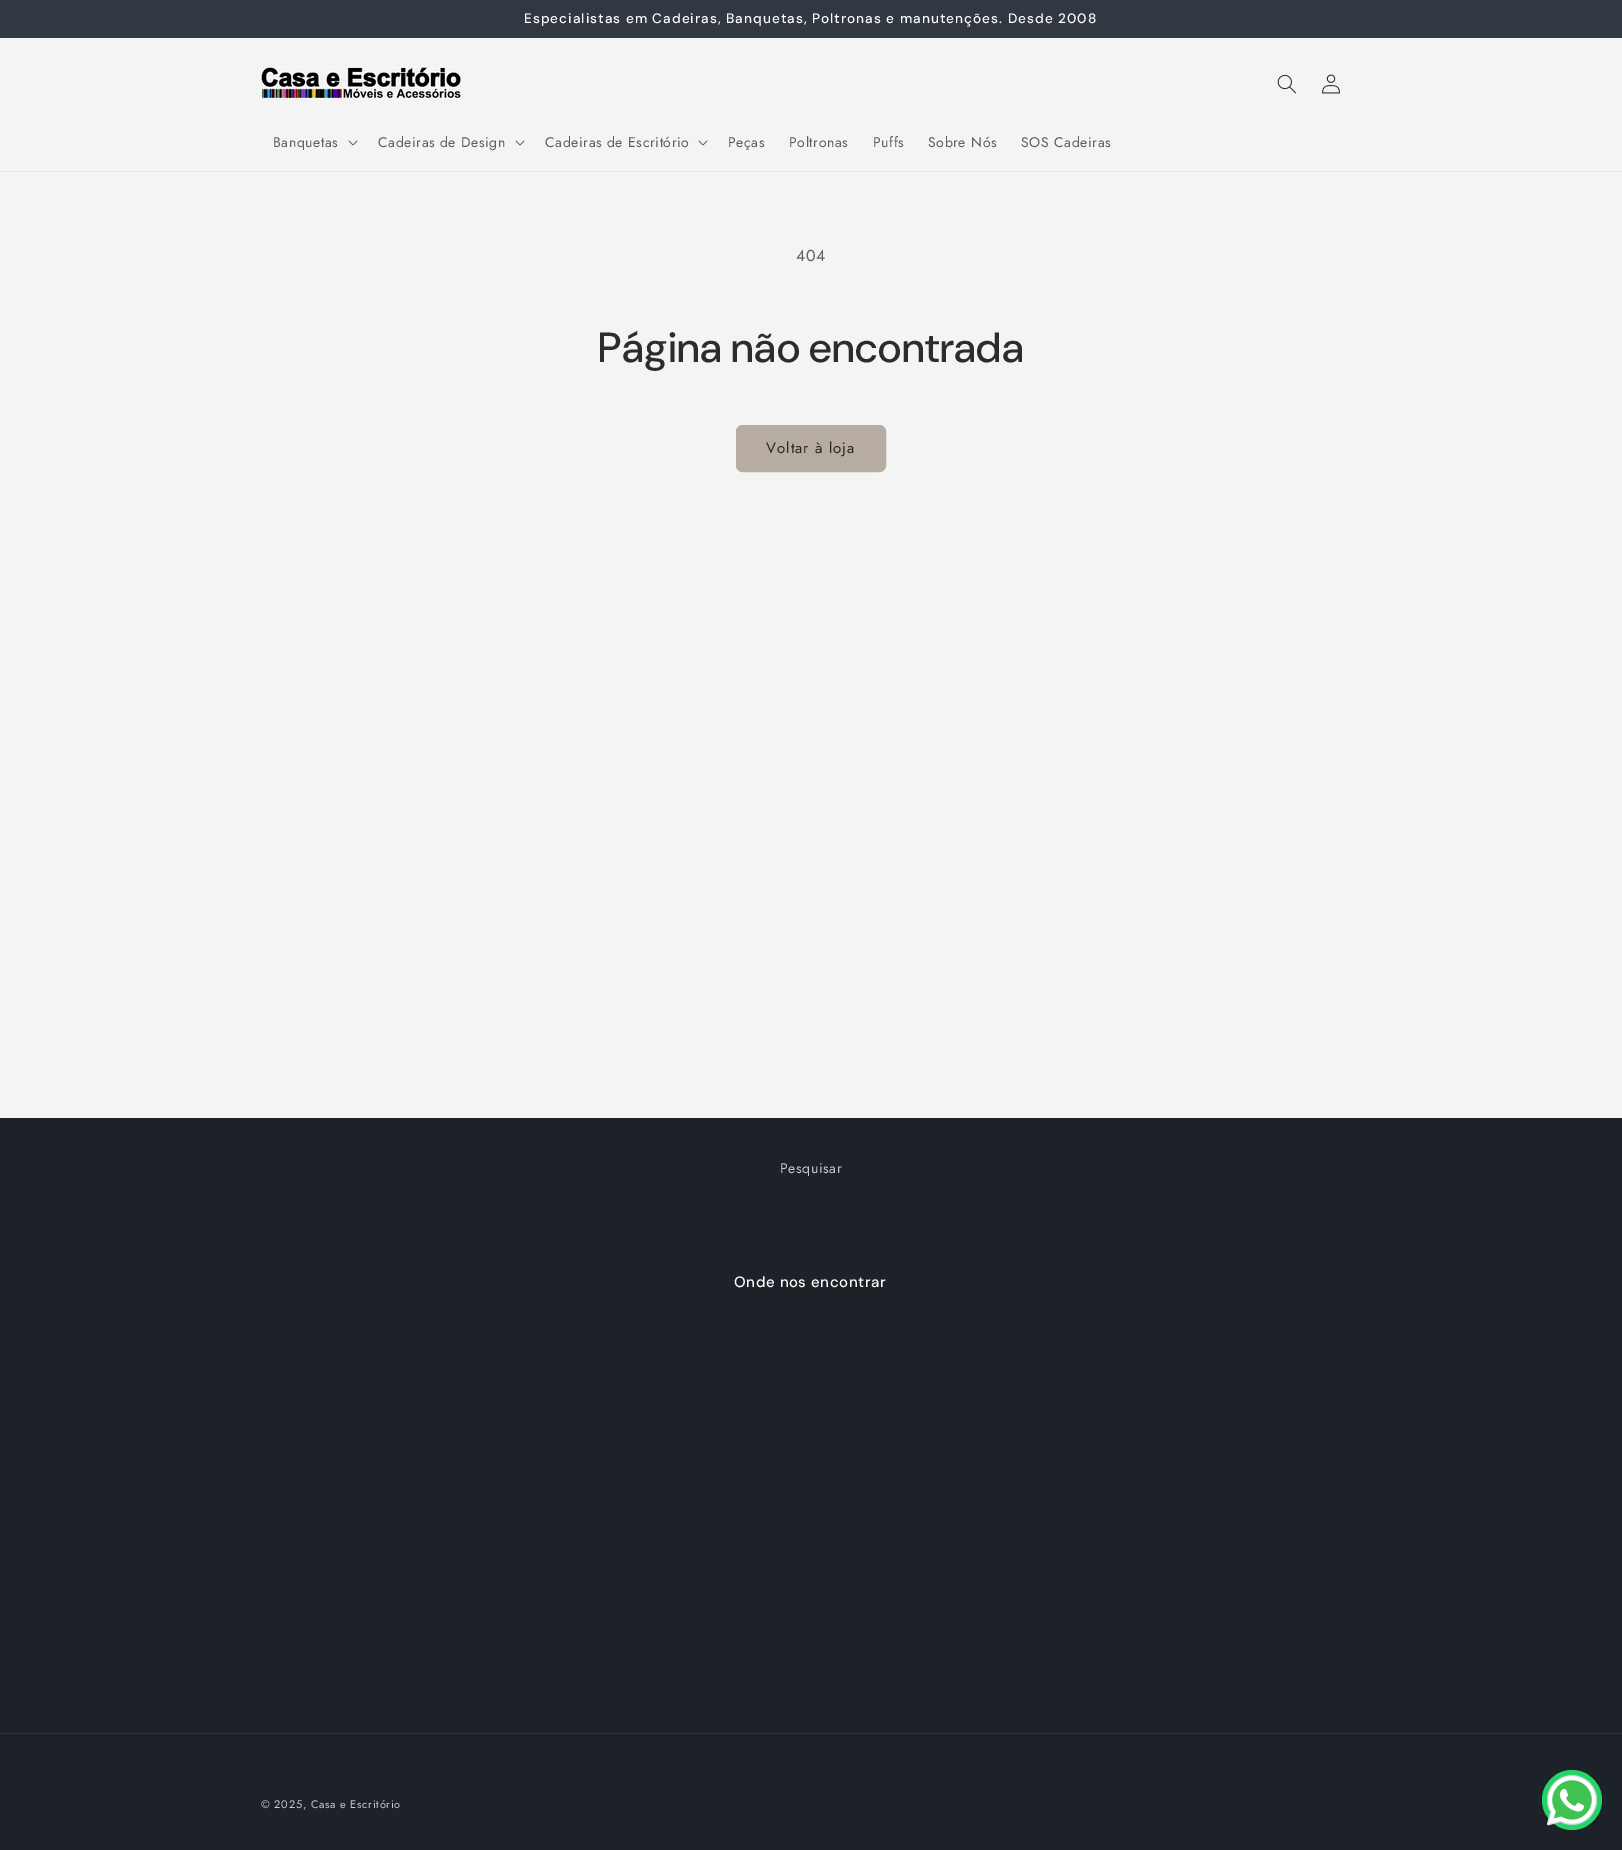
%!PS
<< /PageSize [1622 1850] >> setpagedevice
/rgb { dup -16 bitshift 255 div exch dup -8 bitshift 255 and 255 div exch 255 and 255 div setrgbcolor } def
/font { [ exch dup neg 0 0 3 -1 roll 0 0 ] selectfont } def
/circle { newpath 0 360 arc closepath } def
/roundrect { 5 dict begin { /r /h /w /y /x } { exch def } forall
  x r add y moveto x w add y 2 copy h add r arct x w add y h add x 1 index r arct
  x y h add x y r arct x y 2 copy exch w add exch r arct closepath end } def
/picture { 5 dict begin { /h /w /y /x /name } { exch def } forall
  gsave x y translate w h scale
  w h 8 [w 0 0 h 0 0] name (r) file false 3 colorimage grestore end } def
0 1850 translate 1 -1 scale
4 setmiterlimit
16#F4F4F4 rgb
0 0 1622 1850 rectfill
16#323841 rgb
0 0 1622 38 rectfill
/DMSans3-Medium 13.65 font
16#FFFFFF rgb
524 23 moveto 1 0 (Especialistas em Cadeiras, Banquetas, Poltronas e manutenções. Desde 2008) ashow
16#E4E4E4 rgb
0 171 1622 1 rectfill
(pic1.raw) 261 66 200 37 picture
(pic2.raw) 1277 74 19 20 picture
(pic3.raw) 1322 74 18 20 picture
/Jost-Regular 14 font
16#5D5E5F rgb
273 147 moveto 0.6 0 (Banquetas) ashow
(pic4.raw) 348 140 10 6 picture
378 147 moveto 0.6 0 (Cadeiras de Design) ashow
(pic4.raw) 515 140 10 6 picture
545 147 moveto 0.6 0 (Cadeiras de Escritório) ashow
(pic4.raw) 698 140 10 6 picture
728 147 moveto 0.6 0 (Peças) ashow
789 147 moveto 0.6 0 (Poltronas) ashow
873 147 moveto 0.6 0 (Puffs) ashow
928 147 moveto 0.6 0 (Sobre Nós) ashow
1021 147 moveto 0.6 0 (SOS Cadeiras) ashow
/Jost-Regular 16 font
796 261 moveto 0.6 0 (404) ashow
/DMSans-Medium 42 font
16#2B2C2D rgb
598 362 moveto 0.6 0 (Página não encontrada) ashow
16#B7ACA2 rgb
736 425 150 47 7 roundrect fill
736.5 425.5 149 46 6.5 roundrect stroke
/Jost-Regular 15 font
16#262626 rgb
766 453 moveto 1 0 (Voltar à loja) ashow
16#1C2228 rgb
0 1118 1622 732 rectfill
/Jost-Regular 14 font
16#C6C8C9 rgb
780 1173 moveto 0.6 0 (Pesquisar) ashow
/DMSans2-Medium 15 font
16#FFFFFF rgb
734 1287 moveto 0.6 0 (Onde nos encontrar) ashow
16#2E3439 rgb
0 1733 1622 1 rectfill
/Jost-Regular 11 font
16#C6C8C9 rgb
261 1808 moveto 0.7 0 (© 2025, Casa e Escritório) ashow
16#25D366 rgb
1572 1800 30 circle fill
(pic5.raw) 1546 1775 52 51 picture
showpage
